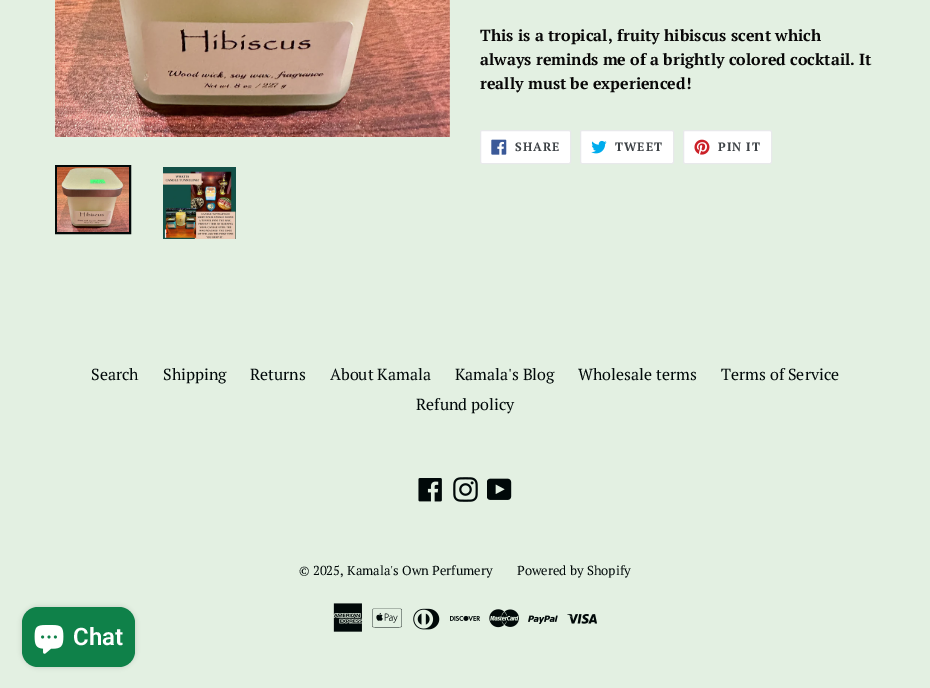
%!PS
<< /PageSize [930 688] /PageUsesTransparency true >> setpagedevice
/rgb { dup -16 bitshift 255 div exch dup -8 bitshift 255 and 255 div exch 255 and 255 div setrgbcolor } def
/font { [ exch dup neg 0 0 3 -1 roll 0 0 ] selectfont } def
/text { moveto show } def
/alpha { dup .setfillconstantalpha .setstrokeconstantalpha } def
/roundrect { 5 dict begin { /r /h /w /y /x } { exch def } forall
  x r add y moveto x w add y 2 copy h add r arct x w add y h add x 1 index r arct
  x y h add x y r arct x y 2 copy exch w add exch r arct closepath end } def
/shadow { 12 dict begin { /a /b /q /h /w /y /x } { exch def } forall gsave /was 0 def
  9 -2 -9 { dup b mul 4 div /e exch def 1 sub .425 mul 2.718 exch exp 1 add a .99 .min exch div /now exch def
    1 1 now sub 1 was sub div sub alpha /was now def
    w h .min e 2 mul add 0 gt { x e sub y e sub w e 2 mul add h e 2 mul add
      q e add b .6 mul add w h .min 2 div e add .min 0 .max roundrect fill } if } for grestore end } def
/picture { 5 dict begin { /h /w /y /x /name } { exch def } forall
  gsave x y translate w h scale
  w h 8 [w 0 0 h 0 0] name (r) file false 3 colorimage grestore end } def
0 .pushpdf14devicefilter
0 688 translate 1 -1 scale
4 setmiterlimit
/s1 { /PTSerif-Bold 16 font 16#080707 rgb } def
/s2 { /PTSerif-Regular 16 font 16#010909 rgb } def
/s3 { /PTSerif-Regular 13 font 16#010909 rgb } def
/s4 { /Roboto-SemiBold 24 font 16#FFFFFF rgb } def
16#E3F0E2 rgb
0 0 930 688 rectfill
(pic1.raw) 55 0 395 137 picture
16#010909 rgb
2 setlinewidth
56 166 74 67 rectstroke
(pic2.raw) 57 167 72 65 picture
(pic3.raw) 163 167 73 72 picture
s1
(This is a tropical, fruity hibiscus scent which) 480 41 text
(always reminds me of a brightly colored cocktail. It) 480 65 text
(really must be experienced!) 480 89 text
16#FFFFFF rgb
480.5 130.5 90 33 1.5 roundrect gsave fill grestore
16#E8E9EB rgb
1 setlinewidth
stroke
(pic4.raw) 491 139 16 16 picture
/PTSerif-Bold 12 font
16#3D4246 rgb
515 151 moveto 1 0 (SHARE) ashow
16#FFFFFF rgb
580.5 130.5 93 33 1.5 roundrect gsave fill grestore
16#E8E9EB rgb
stroke
(pic5.raw) 591 140 16 14 picture
16#3D4246 rgb
615 151 moveto 1 0 (TWEET) ashow
16#FFFFFF rgb
683.5 130.5 88 33 1.5 roundrect gsave fill grestore
16#E8E9EB rgb
stroke
(pic6.raw) 694 139 16 16 picture
16#3D4246 rgb
718 151 moveto 1 0 (PIN IT) ashow
s2
(Search) 91 380 text
(Shipping) 163 380 text
(Returns) 250 380 text
(About Kamala) 330 380 text
(Kamala's Blog) 455 380 text
(Wholesale terms) 578 380 text
(Terms of Service) 721 380 text
(Refund policy) 416 410 text
(pic7.raw) 418 478 24 24 picture
(pic8.raw) 453 477 25 25 picture
(pic9.raw) 487 478 25 22 picture
s3
(© 2025, Kamala's Own Perfumery) 299 575 text
(Powered by Shopify) 517 575 text
(pic10.raw) 333 603 30 29 picture
(pic11.raw) 372 608 30 20 picture
(pic12.raw) 413 608 27 22 picture
(pic13.raw) 450 615 30 6 picture
(pic14.raw) 489 609 30 19 picture
(pic15.raw) 528 615 30 9 picture
(pic16.raw) 567 614 30 10 picture
16#000000 rgb
22 607 113 60 16 2.5 0.15 shadow
16#0F8149 rgb
22 607 113 60 16 roundrect fill
(pic17.raw) 34 625 30 29 picture
s4
(Chat) 73 645 text
.poppdf14devicefilter showpage
